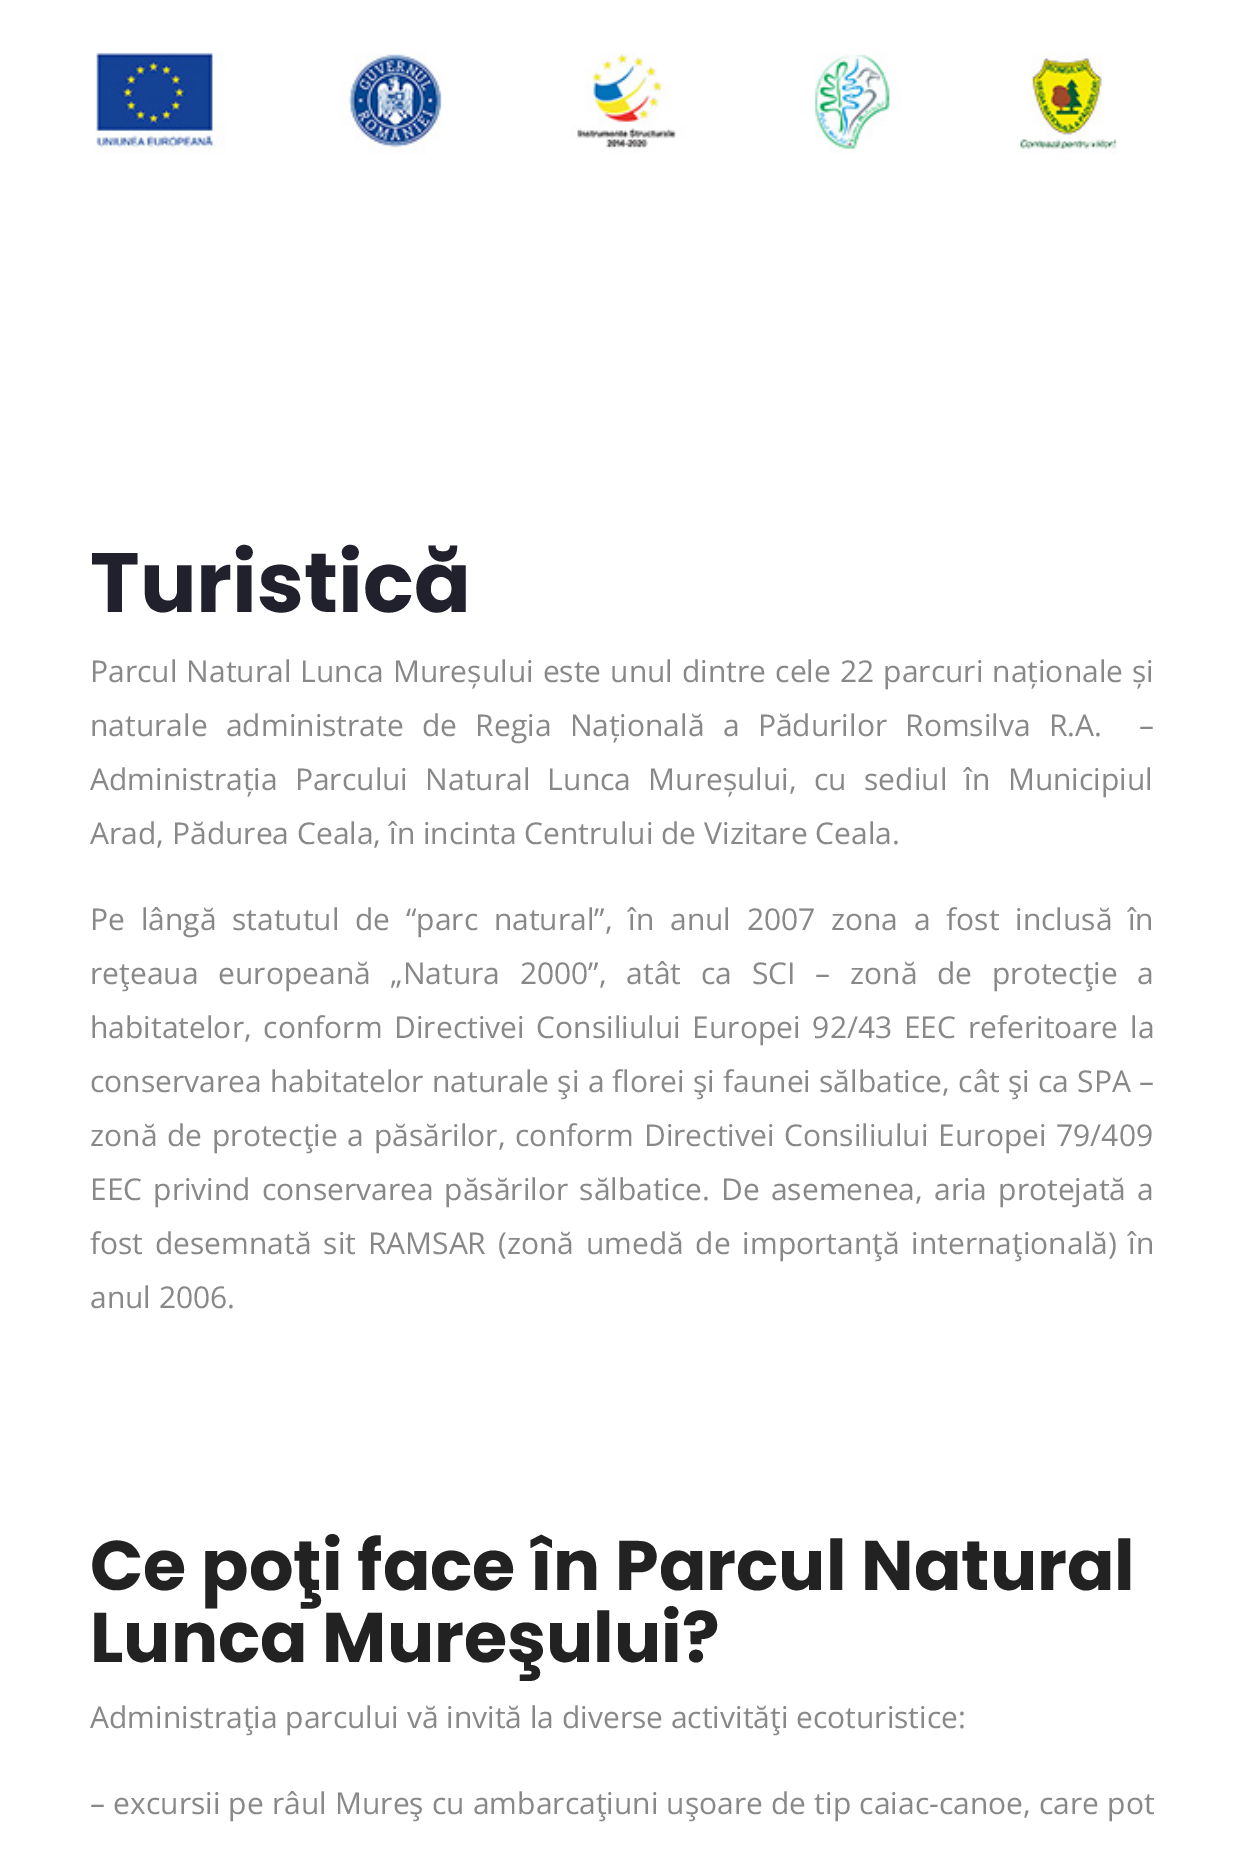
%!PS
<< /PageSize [1244 1855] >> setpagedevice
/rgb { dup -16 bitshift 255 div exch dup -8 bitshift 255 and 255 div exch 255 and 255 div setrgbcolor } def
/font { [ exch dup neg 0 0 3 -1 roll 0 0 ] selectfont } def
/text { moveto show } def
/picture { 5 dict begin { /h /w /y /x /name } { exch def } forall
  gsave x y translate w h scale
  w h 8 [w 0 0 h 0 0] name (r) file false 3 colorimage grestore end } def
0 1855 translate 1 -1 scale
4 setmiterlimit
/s1 { /Poppins-Bold 84 font 16#21212D rgb } def
/s2 { /OpenSans-Regular 30 font 16#888888 rgb } def
/s3 { /Poppins-Bold 70 font 16#222222 rgb } def
16#FFFFFF rgb
0 0 1244 1855 rectfill
(pic1.raw) 95 52 1022 102 picture
s1
(Turistică) 90 612 text
/OpenSans-Regular 30 font
16#888888 rgb
90 682 moveto 1.25 0 32 (Parcul Natural Lunca Mureșului este unul dintre cele 22 parcuri naționale și) widthshow
90 736 moveto 10.5 0 32 (naturale administrate de Regia Națională a Pădurilor Romsilva R.A.  –) widthshow
90 790 moveto 9.5 0 32 (Administrația Parcului Natural Lunca Mureșului, cu sediul în Municipiul) widthshow
(Arad, Pădurea Ceala, în incinta Centrului de Vizitare Ceala.) 90 844 text
90 930 moveto 7.9 0 32 (Pe lângă statutul de “parc natural”, în anul 2007 zona a fost inclusă în) widthshow
90 984 moveto 12 0 32 (reţeaua europeană „Natura 2000”, atât ca SCI – zonă de protecţie a) widthshow
90 1038 moveto 4 0 32 (habitatelor, conform Directivei Consiliului Europei 92/43 EEC referitoare la) widthshow
90 1092 moveto 0.4 0 32 (conservarea habitatelor naturale şi a florei şi faunei sălbatice, cât şi ca SPA –) widthshow
90 1146 moveto 2 0 32 (zonă de protecţie a păsărilor, conform Directivei Consiliului Europei 79/409) widthshow
90 1200 moveto 3.25 0 32 (EEC privind conservarea păsărilor sălbatice. De asemenea, aria protejată a) widthshow
90 1254 moveto 4 0 32 (fost desemnată sit RAMSAR \(zonă umedă de importanţă internaţională\) în) widthshow
(anul 2006.) 90 1308 text
s3
(Ce poţi face în Parcul Natural) 90 1590 text
(Lunca Mureşului?) 90 1662 text
s2
(Administraţia parcului vă invită la diverse activităţi ecoturistice:) 90 1728 text
90 1814 moveto 0.4 0 32 (– excursii pe râul Mureş cu ambarcaţiuni uşoare de tip caiac-canoe, care pot) widthshow
showpage
